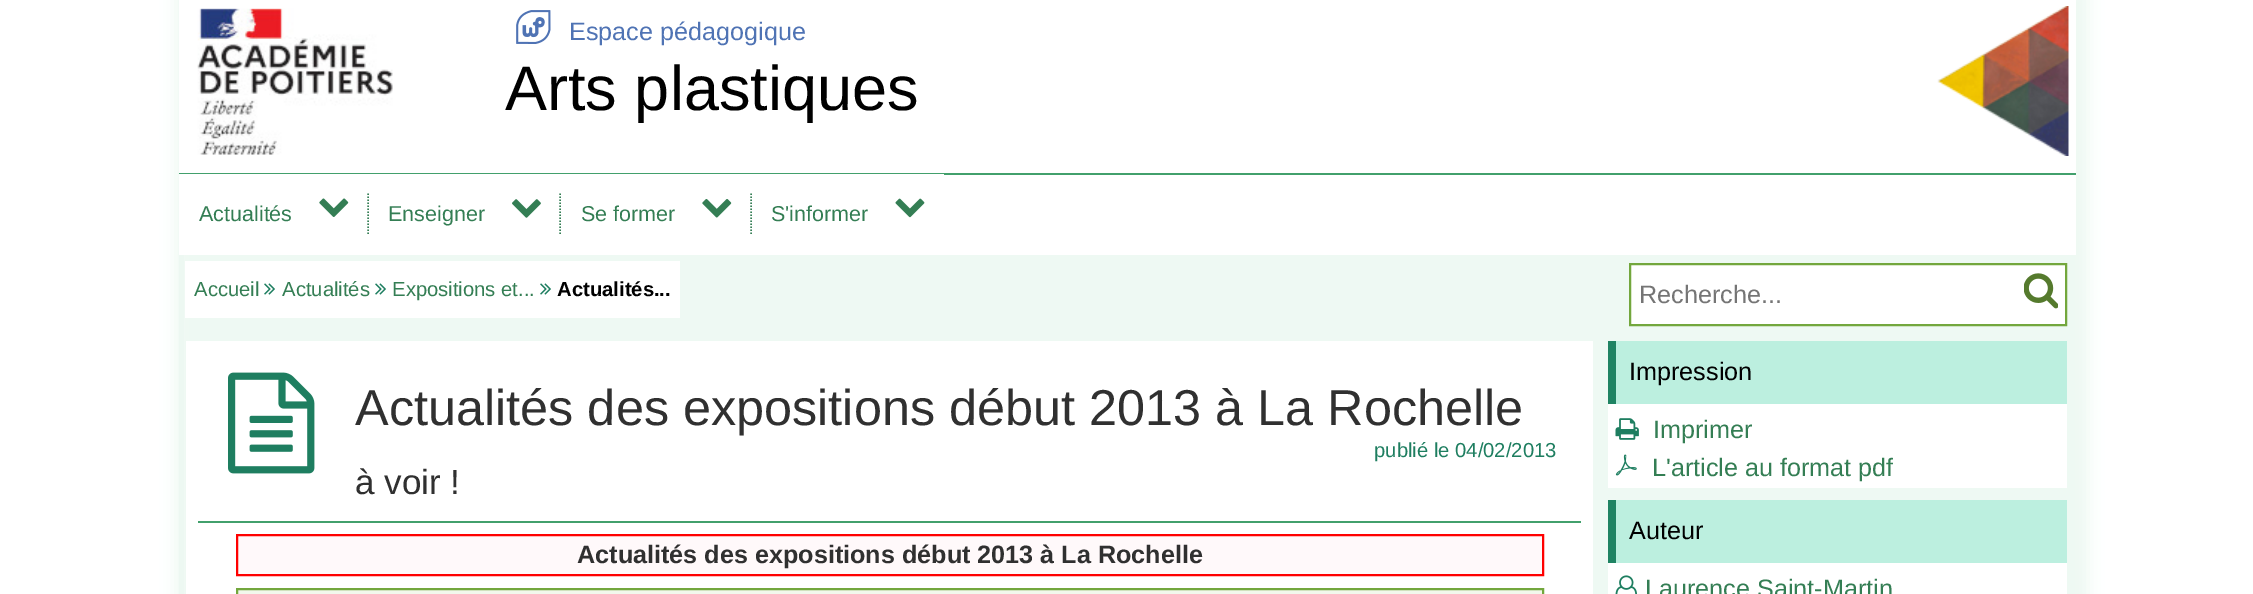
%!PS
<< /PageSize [2253 594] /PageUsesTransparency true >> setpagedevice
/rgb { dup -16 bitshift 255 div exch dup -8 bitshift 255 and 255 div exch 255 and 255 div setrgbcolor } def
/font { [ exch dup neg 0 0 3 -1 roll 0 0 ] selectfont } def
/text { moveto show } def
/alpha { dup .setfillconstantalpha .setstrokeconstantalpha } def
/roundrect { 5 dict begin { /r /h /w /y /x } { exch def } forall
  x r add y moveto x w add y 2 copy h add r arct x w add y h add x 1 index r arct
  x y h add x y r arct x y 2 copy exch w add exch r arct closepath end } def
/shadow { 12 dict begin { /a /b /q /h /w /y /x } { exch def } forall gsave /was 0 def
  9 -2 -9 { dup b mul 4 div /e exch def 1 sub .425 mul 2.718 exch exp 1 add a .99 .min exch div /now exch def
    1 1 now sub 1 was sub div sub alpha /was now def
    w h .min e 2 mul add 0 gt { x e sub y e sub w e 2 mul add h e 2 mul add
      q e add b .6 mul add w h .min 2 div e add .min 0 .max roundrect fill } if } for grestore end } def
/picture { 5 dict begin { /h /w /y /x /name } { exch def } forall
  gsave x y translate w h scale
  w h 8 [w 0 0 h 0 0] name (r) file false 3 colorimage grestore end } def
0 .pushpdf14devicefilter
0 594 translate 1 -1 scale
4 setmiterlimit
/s1 { /LiberationSans-Regular 25.2 font 16#4F73B4 rgb } def
/s2 { /LiberationSans-Regular 63 font 16#000000 rgb } def
/s3 { /LiberationSans-Regular 21.5 font 16#347E54 rgb } def
/s4 { /LiberationSans-Regular 20.25 font 16#347E54 rgb } def
/s5 { /LiberationSans-Bold 20.25 font 16#000000 rgb } def
/s6 { /LiberationSans-Regular 25.2 font 16#757575 rgb } def
/s7 { /LiberationSans-Regular 50.4 font 16#303030 rgb } def
/s8 { /LiberationSans-Regular 20.25 font 16#1E7E60 rgb } def
/s9 { /LiberationSans-Regular 35 font 16#303030 rgb } def
/s10 { /LiberationSans-Bold 25.2 font 16#303030 rgb } def
/s11 { /LiberationSans-Regular 25.2 font 16#000000 rgb } def
/s12 { /LiberationSans-Regular 25.2 font 16#347E54 rgb } def
16#FFFFFF rgb
0 0 2253 594 rectfill
16#EDF8F2 rgb
176 -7 1912 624 0 7.5 1 shadow
179 255 5 339 rectfill
16#FFFFFF rgb
179 0 1897 173 rectfill
(pic1.raw) 197 8 196 147 picture
(pic2.raw) 516 10 35 34 picture
s1
(Espace pédagogique) 569 40 text
s2
(Arts plastiques) 505 110 text
(pic3.raw) 1937 6 132 150 picture
16#FFFFFF rgb
944 175 1132 80 rectfill
16#42A06C rgb
179 173 1897 2 rectfill
16#FFFFFF rgb
179 174 765 81 rectfill
s3
(Actualités) 199 221 text
(pic4.raw) 319 198 30 19 picture
1.5 setlinewidth
[1.5 1.5] 0 setdash
368 193.5 moveto 368 234 lineto stroke
(Enseigner) 388 221 text
(pic5.raw) 512 199 29 19 picture
560 193.5 moveto 560 234 lineto stroke
(Se former) 581 221 text
(pic6.raw) 702 199 30 19 picture
751 193.5 moveto 751 234 lineto stroke
(S'informer) 771 221 text
(pic7.raw) 895 198 30 20 picture
16#FFFFFF rgb
185 261 495 57 rectfill
s4
(Accueil) 194 296 text
(pic8.raw) 264 283 11 12 picture
(Actualités) 282 296 text
(pic8.raw) 375 283 11 12 picture
(Expositions et...) 392 296 text
(pic8.raw) 540 283 11 12 picture
s5
(Actualités...) 557 296 text
16#FFFFFF rgb
1630 264 moveto 2066 264 lineto 2066 325 lineto 1630 325 lineto closepath gsave fill grestore
16#73A73D rgb
2 setlinewidth
[] 0 setdash
stroke
s6
(Recherche...) 1639 303 text
(pic9.raw) 2024 273 34 36 picture
16#FFFFFF rgb
186 341 1407 253 rectfill
(pic10.raw) 228 372 87 102 picture
s7
(Actualités des expositions début 2013 à La Rochelle) 355 425 text
s8
(publié le 04/02/2013) 1374 457 text
s9
(à voir !) 355 494 text
16#42A06C rgb
198 521 1383 2 rectfill
16#FFF9FA rgb
237 535 moveto 1543 535 lineto 1543 575 lineto 237 575 lineto closepath gsave fill grestore
16#FF0000 rgb
stroke
s10
(Actualités des expositions début 2013 à La Rochelle) 577 563 text
16#F2F8EC rgb
237 589 moveto 1543 589 lineto 1543 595 lineto 237 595 lineto closepath gsave fill grestore
16#73A73D rgb
stroke
16#FFFFFF rgb
1608 404 459 84 rectfill
16#BCEFDF rgb
1616 341 451 63 rectfill
16#1F8363 rgb
1608 341 8 63 rectfill
s11
(Impression) 1629 380 text
(pic11.raw) 1615 418 24 22 picture
s12
(Imprimer) 1653 438 text
(pic12.raw) 1615 454 22 22 picture
(L'article au format pdf) 1652 476 text
16#FFFFFF rgb
1608 563 459 31 rectfill
16#BCEFDF rgb
1616 500 451 63 rectfill
16#1F8363 rgb
1608 500 8 63 rectfill
s11
(Auteur) 1629 539 text
(pic13.raw) 1615 575 22 19 picture
s12
(Laurence Saint-Martin) 1645 597 text
.poppdf14devicefilter showpage
